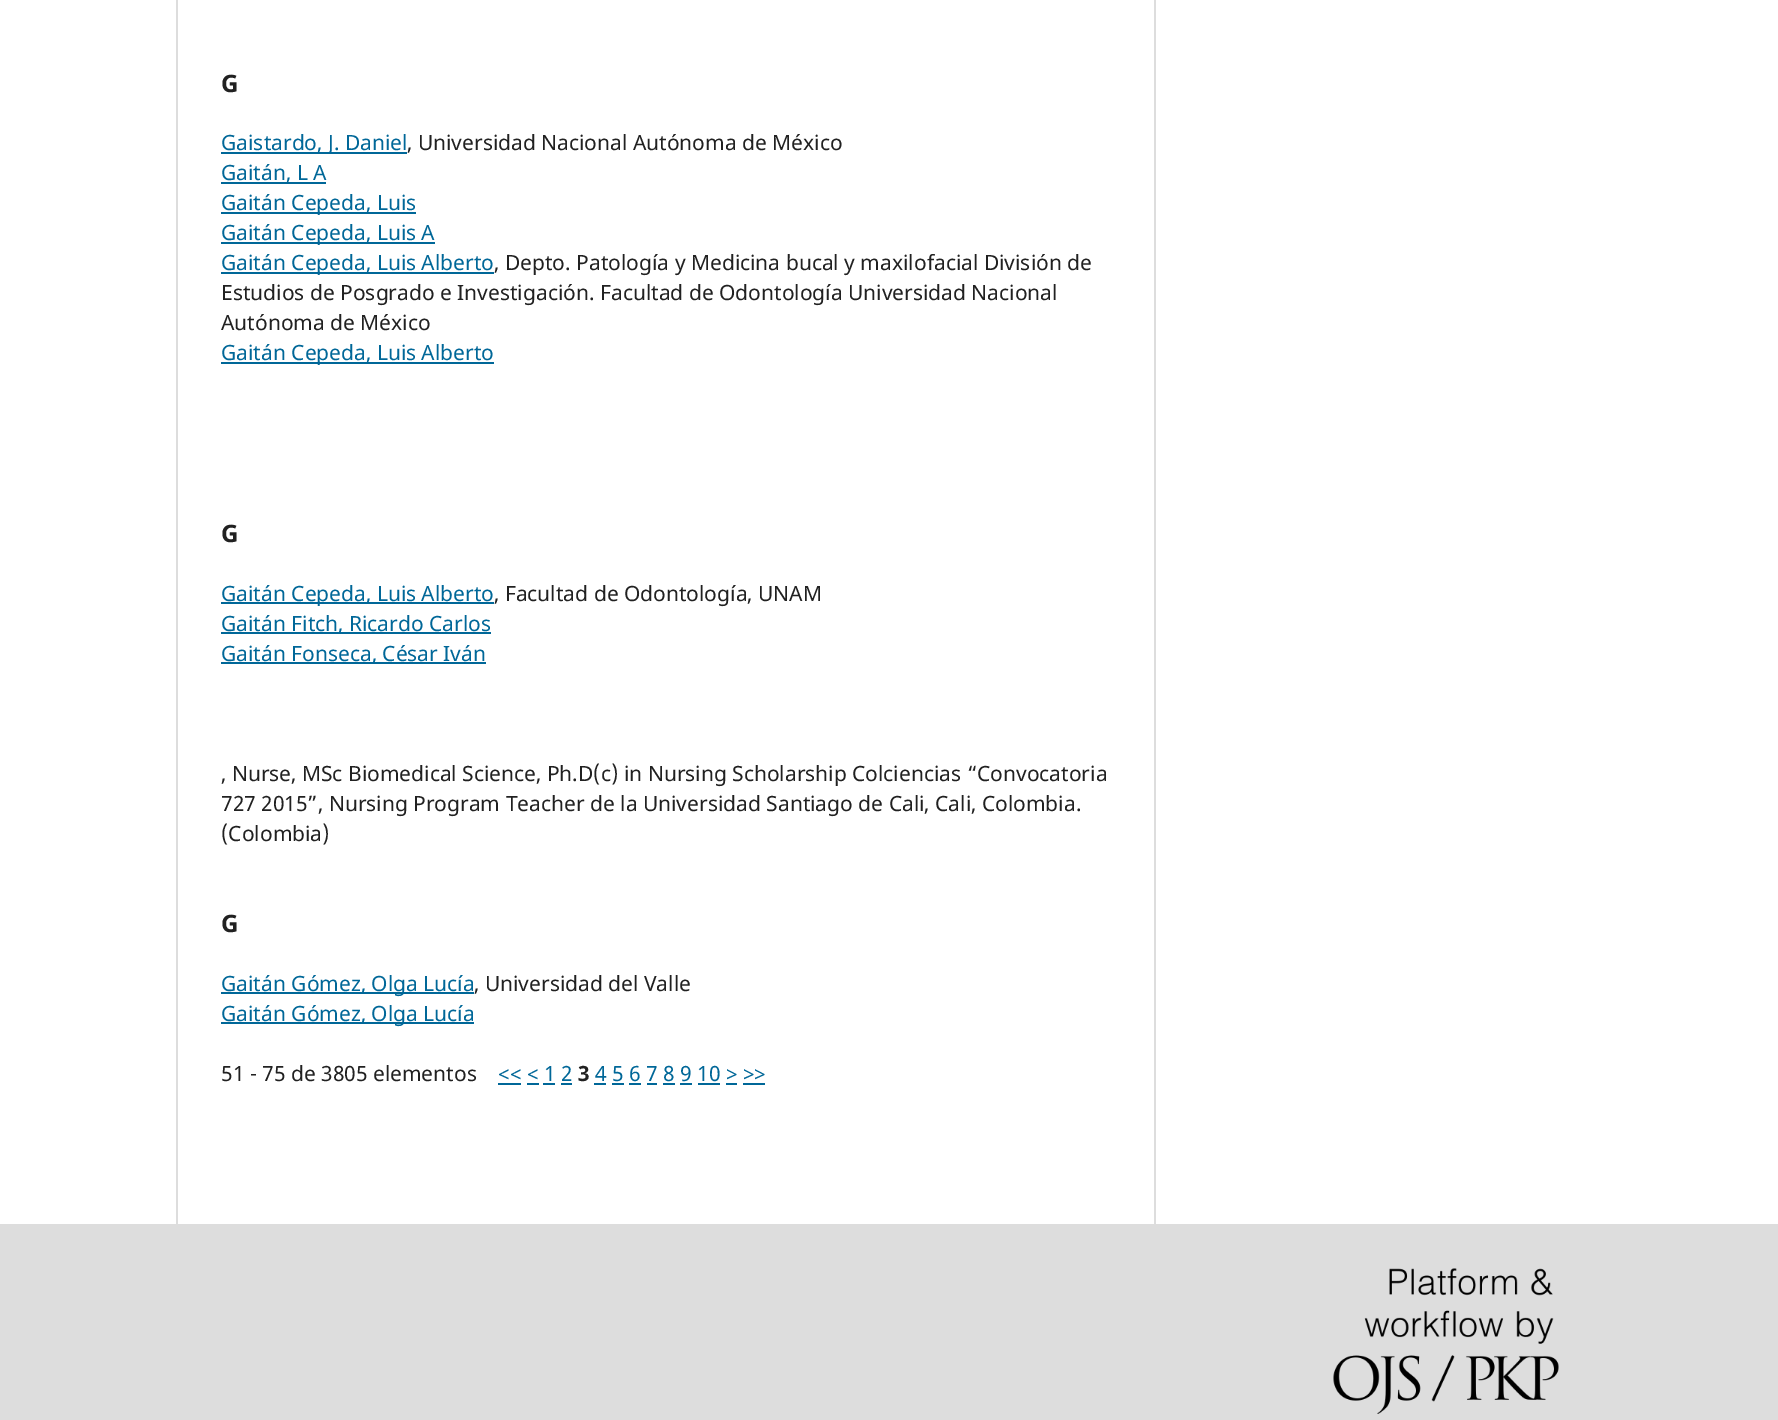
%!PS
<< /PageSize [1778 1420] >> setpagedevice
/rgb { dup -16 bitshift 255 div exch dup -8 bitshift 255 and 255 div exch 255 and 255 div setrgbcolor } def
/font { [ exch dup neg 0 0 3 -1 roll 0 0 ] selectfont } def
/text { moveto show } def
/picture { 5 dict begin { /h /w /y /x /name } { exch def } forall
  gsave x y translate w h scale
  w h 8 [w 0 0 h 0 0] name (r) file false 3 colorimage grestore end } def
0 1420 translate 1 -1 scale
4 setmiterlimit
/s1 { /NotoSans-Bold 24 font 16#212121 rgb } def
/s2 { /NotoSans-Regular 21 font 16#006798 rgb } def
/s3 { /NotoSans-Regular 21 font 16#212121 rgb } def
/s4 { /NotoSans-Bold 21 font 16#212121 rgb } def
16#FFFFFF rgb
0 0 1778 1420 rectfill
16#DDDDDD rgb
176 0 2 1224 rectfill
s1
(G) 221 92 text
16#006798 rgb
221 152 186 2 rectfill
s2
(Gaistardo, J. Daniel) 221 150 text
s3
(, Universidad Nacional Autónoma de México) 407 150 text
16#006798 rgb
221 182 105 2 rectfill
(Gaitán, L A) 221 180 text
221 212 195 2 rectfill
(Gaitán Cepeda, Luis) 221 210 text
221 242 214 2 rectfill
(Gaitán Cepeda, Luis A) 221 240 text
221 272 273 2 rectfill
(Gaitán Cepeda, Luis Alberto) 221 270 text
s3
(, Depto. Patología y Medicina bucal y maxilofacial División de) 494 270 text
(Estudios de Posgrado e Investigación. Facultad de Odontología Universidad Nacional) 221 300 text
(Autónoma de México) 221 330 text
16#006798 rgb
221 362 273 2 rectfill
(Gaitán Cepeda, Luis Alberto) 221 360 text
s1
(G) 221 542 text
16#006798 rgb
221 602 273 2 rectfill
s2
(Gaitán Cepeda, Luis Alberto) 221 601 text
s3
(, Facultad de Odontología, UNAM) 494 601 text
16#006798 rgb
221 632 270 2 rectfill
(Gaitán Fitch, Ricardo Carlos) 221 631 text
221 662 265 2 rectfill
(Gaitán Fonseca, César Iván) 221 661 text
s3
(, Nurse, MSc Biomedical Science, Ph.D\(c\) in Nursing Scholarship Colciencias “Convocatoria) 221 781 text
(727 2015”, Nursing Program Teacher de la Universidad Santiago de Cali, Cali, Colombia.) 221 811 text
(\(Colombia\)) 221 841 text
s1
(G) 221 932 text
16#006798 rgb
221 992 253 2 rectfill
s2
(Gaitán Gómez, Olga Lucía) 221 991 text
s3
(, Universidad del Valle) 474 991 text
16#006798 rgb
221 1022 253 2 rectfill
(Gaitán Gómez, Olga Lucía) 221 1021 text
s3
(51 - 75 de 3805 elementos) 221 1081 text
s2
(<< < 1 2) 498 1081 text
498 1083 23 2 rectfill
s4
(3) 578 1081 text
s2
(4 5 6 7 8 9 10 > >>) 595 1081 text
594 1083 12 2 rectfill
527 1083 12 2 rectfill
543 1083 12 2 rectfill
561 1083 11 2 rectfill
612 1083 12 2 rectfill
629 1083 12 2 rectfill
647 1083 10 2 rectfill
663 1083 12 2 rectfill
680 1083 12 2 rectfill
698 1083 22 2 rectfill
726 1083 11 2 rectfill
743 1083 22 2 rectfill
16#DDDDDD rgb
1154 0 2 1224 rectfill
0 1224 1778 196 rectfill
(pic1.raw) 1333 1268 226 146 picture
showpage
